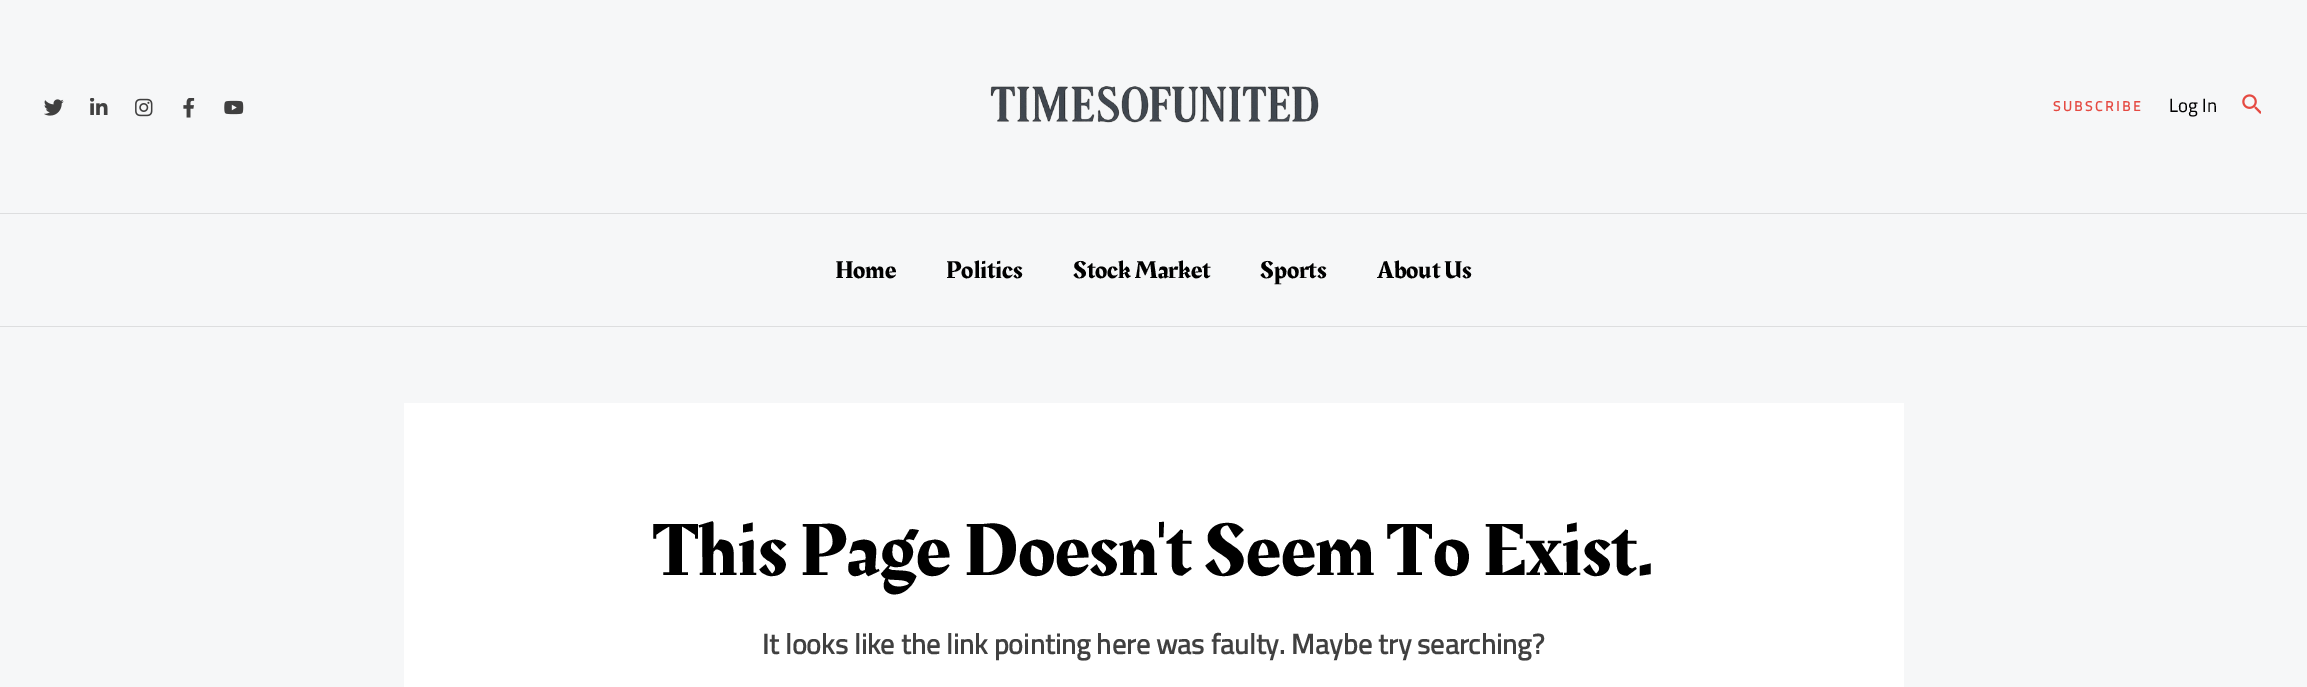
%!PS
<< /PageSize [2307 687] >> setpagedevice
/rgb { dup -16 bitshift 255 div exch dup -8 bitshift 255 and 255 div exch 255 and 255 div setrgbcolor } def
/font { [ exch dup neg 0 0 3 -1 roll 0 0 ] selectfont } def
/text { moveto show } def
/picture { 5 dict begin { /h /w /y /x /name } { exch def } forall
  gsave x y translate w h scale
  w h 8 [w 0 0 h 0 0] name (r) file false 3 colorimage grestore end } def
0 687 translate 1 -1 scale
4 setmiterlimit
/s1 { /Cairo-Regular 19 font 16#000000 rgb } def
/s2 { /Rakkas-Regular 25 font 16#000000 rgb } def
/s3 { /Rakkas-Regular 76.25 font 16#000000 rgb } def
/s4 { /Cairo-Bold 28.1 font 16#404040 rgb } def
16#F6F7F8 rgb
0 0 2307 687 rectfill
16#DDDEDF rgb
0 213 2307 1 rectfill
(pic1.raw) 44 99 20 17 picture
(pic2.raw) 90 98 18 17 picture
(pic3.raw) 135 98 18 19 picture
(pic4.raw) 183 98 12 20 picture
(pic5.raw) 224 100 20 15 picture
(pic6.raw) 990 86 329 37 picture
/Cairo-Bold 13.75 font
16#E54A42 rgb
2053 111 moveto 2.5 0 (SUBSCRIBE) ashow
s1
(Log In) 2169 112 text
(pic7.raw) 2242 94 19 20 picture
16#DDDEDF rgb
0 326 2307 1 rectfill
s2
(Home) 835 278 text
(Politics) 946 278 text
(Stock Market) 1073 278 text
(Sports) 1260 278 text
(About Us) 1377 278 text
16#FFFFFF rgb
404 403 1500 284 rectfill
s3
(This Page Doesn't Seem To Exist.) 653 575 text
s4
(It looks like the link pointing here was faulty. Maybe try searching?) 762 654 text
showpage
